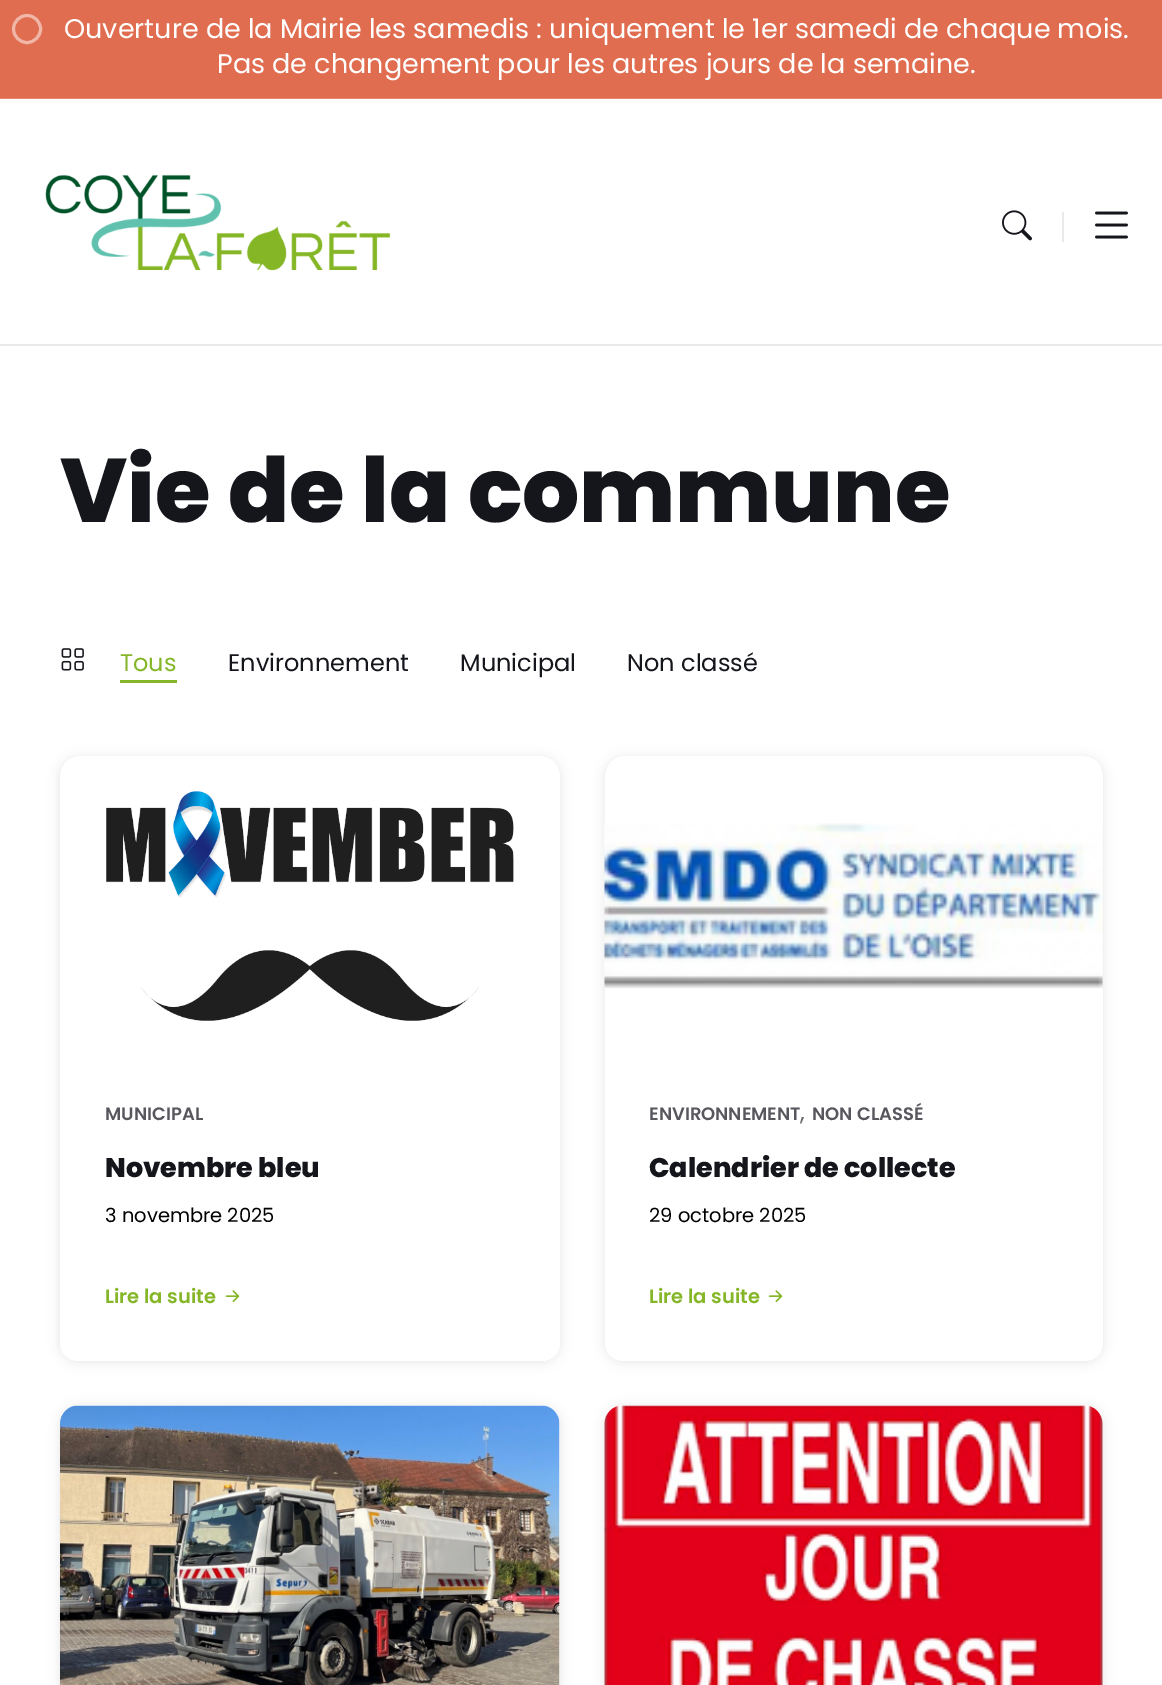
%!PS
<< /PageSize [1162 1685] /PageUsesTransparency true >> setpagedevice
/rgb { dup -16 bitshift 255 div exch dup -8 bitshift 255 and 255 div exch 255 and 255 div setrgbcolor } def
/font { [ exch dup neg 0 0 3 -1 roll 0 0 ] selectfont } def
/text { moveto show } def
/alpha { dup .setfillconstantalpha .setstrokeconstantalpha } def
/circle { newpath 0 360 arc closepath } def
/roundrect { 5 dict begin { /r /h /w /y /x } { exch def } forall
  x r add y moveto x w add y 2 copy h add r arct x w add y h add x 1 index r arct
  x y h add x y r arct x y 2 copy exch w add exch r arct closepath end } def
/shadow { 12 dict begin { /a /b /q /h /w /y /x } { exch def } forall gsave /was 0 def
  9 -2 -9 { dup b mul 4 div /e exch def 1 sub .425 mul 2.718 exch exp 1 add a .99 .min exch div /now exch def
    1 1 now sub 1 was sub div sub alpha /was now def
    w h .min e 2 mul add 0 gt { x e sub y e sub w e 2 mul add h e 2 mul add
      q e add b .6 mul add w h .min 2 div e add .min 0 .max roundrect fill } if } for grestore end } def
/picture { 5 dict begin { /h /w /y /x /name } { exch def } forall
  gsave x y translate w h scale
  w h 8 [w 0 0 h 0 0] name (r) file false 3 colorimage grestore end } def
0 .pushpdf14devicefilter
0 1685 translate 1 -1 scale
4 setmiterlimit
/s1 { /Poppins-Regular 27 font 16#FFFFFF rgb } def
/s2 { /Poppins-ExtraBold 90 font 16#14161C rgb } def
/s3 { /Poppins-Regular 24 font 16#84B627 rgb } def
/s4 { /Poppins-Regular 24 font 16#14161C rgb } def
/s5 { /Poppins-SemiBold 18 font 16#58575E rgb } def
/s6 { /Poppins-ExtraBold 27 font 16#14161C rgb } def
/s7 { /Poppins-Regular 19.5 font 16#000000 rgb } def
/s8 { /Poppins-SemiBold 19.5 font 16#84B627 rgb } def
/s9 { /Poppins-Regular 24 font 16#6A6971 rgb } def
16#FFFFFF rgb
0 0 1162 1685 rectfill
16#E9E9EA rgb
0 344 1162 2 rectfill
16#E06D4F rgb
0 0 1162 98 rectfill
16#E68A72 rgb
0 98 1162 1 rectfill
16#F0B6A7 rgb
3 setlinewidth
27 29 13.5 circle stroke
s1
(Ouverture de la Mairie les samedis : uniquement le 1er samedi de chaque mois.) 64 38 text
(Pas de changement pour les autres jours de la semaine.) 217 73 text
(pic1.raw) 45 174 346 96 picture
(pic2.raw) 1002 210 30 31 picture
16#E9E9EA rgb
1062 212 2 30 rectfill
(pic3.raw) 1095 211 33 28 picture
s2
(Vie de la commune) 60 522 text
(pic4.raw) 61 648 23 23 picture
s3
(Tous) 120 671 text
120 680 57 3 rectfill
s4
(Environnement) 228 671 text
(Municipal) 460 671 text
(Non classé) 627 671 text
gsave
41 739 moveto 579 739 lineto 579 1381 lineto 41 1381 lineto closepath 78 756 moveto 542 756 lineto 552 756 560 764 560 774 curveto 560 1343 lineto 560 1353 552 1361 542 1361 curveto 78 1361 lineto 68 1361 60 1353 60 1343 curveto 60 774 lineto 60 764 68 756 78 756 curveto closepath eoclip newpath
16#000000 rgb
60 758 500 604 18 6 0.1 shadow
grestore
(pic5.raw) 106 791 408 230 picture
16#FFFFFF rgb
60 1056 moveto 560 1056 lineto 560 1343 lineto 560 1353 552 1361 542 1361 curveto 78 1361 lineto 68 1361 60 1353 60 1343 curveto closepath fill
s5
(MUNICIPAL) 105 1120 text
s6
(Novembre bleu) 105 1177 text
s7
(3 novembre 2025) 105 1222 text
s8
(Lire la suite) 105 1303 text
(pic6.raw) 225 1290 15 13 picture
gsave
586 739 moveto 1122 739 lineto 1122 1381 lineto 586 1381 lineto closepath 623 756 moveto 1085 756 lineto 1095 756 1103 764 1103 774 curveto 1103 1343 lineto 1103 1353 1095 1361 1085 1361 curveto 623 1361 lineto 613 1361 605 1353 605 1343 curveto 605 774 lineto 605 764 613 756 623 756 curveto closepath eoclip newpath
16#000000 rgb
605 758 498 604 18 6 0.1 shadow
grestore
(pic7.raw) 604 823 499 166 picture
16#FFFFFF rgb
605 1056 moveto 1103 1056 lineto 1103 1343 lineto 1103 1353 1095 1361 1085 1361 curveto 623 1361 lineto 613 1361 605 1353 605 1343 curveto closepath fill
s5
(ENVIRONNEMENT) 649 1120 text
s9
(,) 800 1120 text
s5
(NON CLASSÉ) 812 1120 text
s6
(Calendrier de collecte) 649 1177 text
s7
(29 octobre 2025) 649 1222 text
s8
(Lire la suite) 649 1303 text
(pic6.raw) 768 1290 15 13 picture
16#000000 rgb
60 1407 500 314 18 6 0.1 shadow
(pic8.raw) 60 1405 500 280 picture
605 1407 498 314 18 6 0.1 shadow
(pic9.raw) 604 1405 499 280 picture
.poppdf14devicefilter showpage
